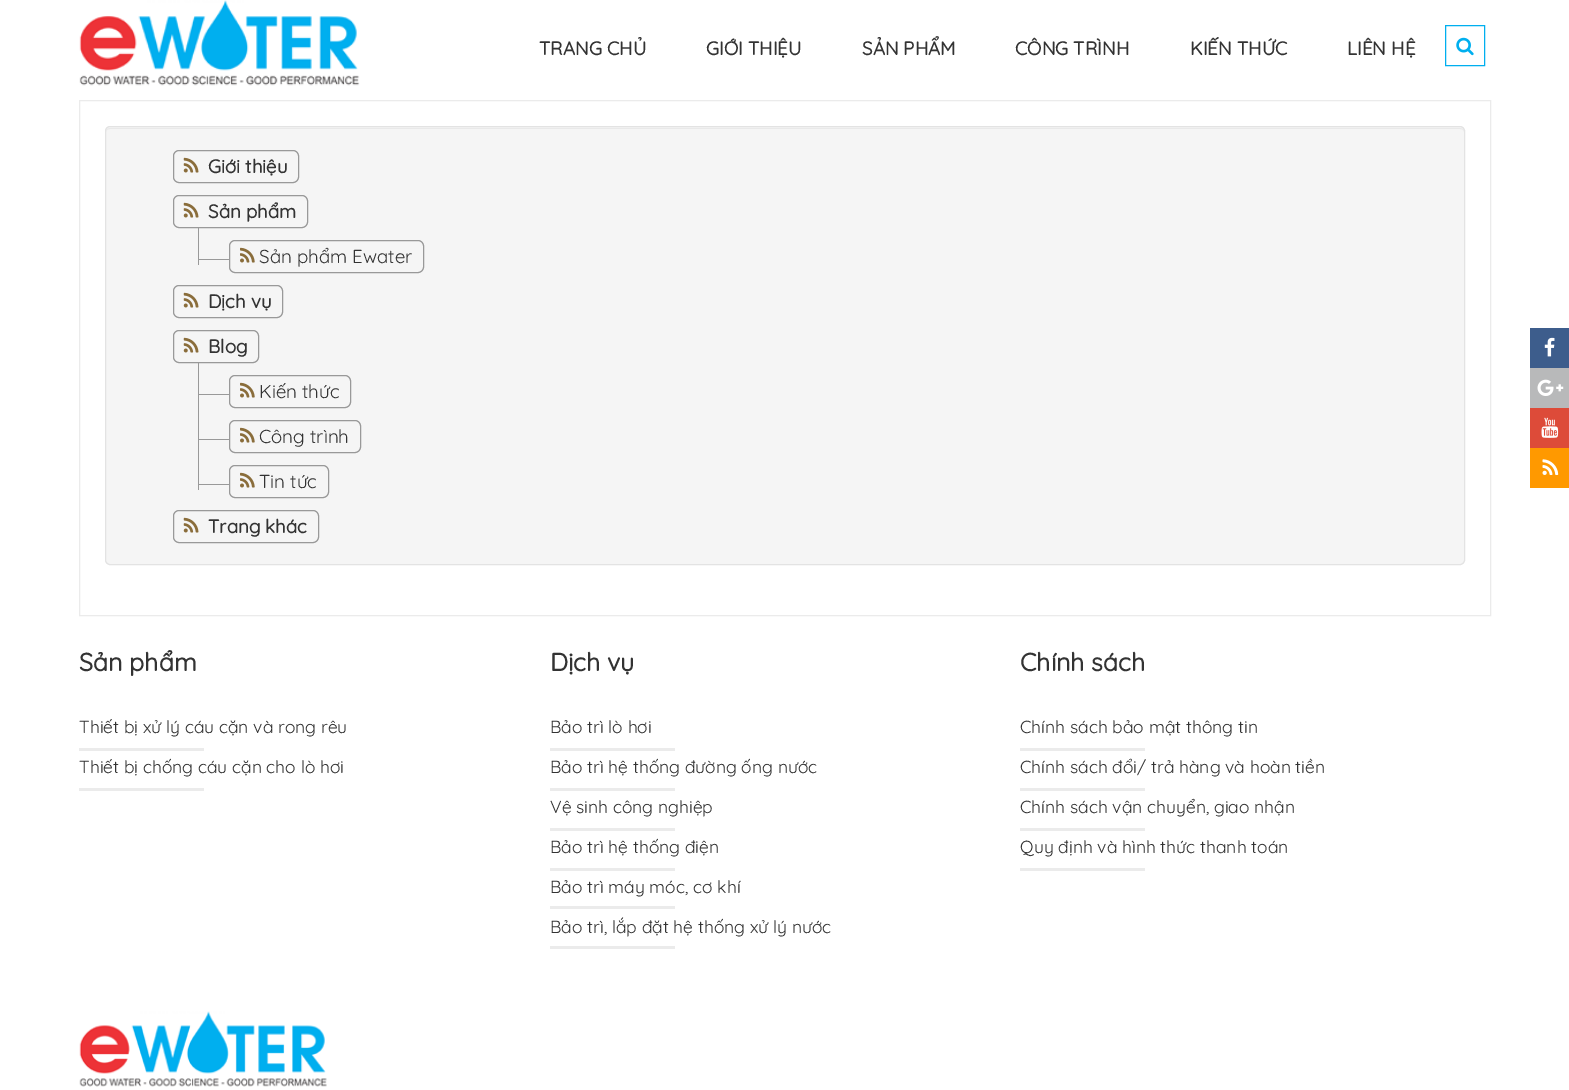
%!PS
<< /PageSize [1569 1090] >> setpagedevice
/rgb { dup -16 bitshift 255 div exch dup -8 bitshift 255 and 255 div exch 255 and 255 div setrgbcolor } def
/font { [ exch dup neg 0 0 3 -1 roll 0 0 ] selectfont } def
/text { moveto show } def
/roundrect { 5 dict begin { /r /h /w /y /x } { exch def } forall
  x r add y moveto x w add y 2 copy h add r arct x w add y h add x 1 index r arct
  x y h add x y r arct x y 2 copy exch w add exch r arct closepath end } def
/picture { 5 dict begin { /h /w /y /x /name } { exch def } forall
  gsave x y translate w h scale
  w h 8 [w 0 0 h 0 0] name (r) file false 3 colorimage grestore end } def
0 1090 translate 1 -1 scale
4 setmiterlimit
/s1 { /Quicksand-Bold 18.75 font 16#333333 rgb } def
/s2 { /Quicksand-Regular 18.75 font 16#333333 rgb } def
/s3 { /Quicksand-Bold 25 font 16#333333 rgb } def
/s4 { /Quicksand-Regular 17.5 font 16#333333 rgb } def
16#FFFFFF rgb
0 0 1569 1090 rectfill
(pic1.raw) 79 0 281 86 picture
s1
(TRANG CHỦ) 539 55 text
(GIỚI THIỆU) 706 55 text
(SẢN PHẨM) 862 55 text
(CÔNG TRÌNH) 1015 55 text
(KIẾN THỨC) 1190 55 text
(LIÊN HỆ) 1347 55 text
16#00AFEF rgb
1445.5 25.5 39 40 rectstroke
(pic2.raw) 1456 37 18 19 picture
16#EBEBEB rgb
79.5 100.5 1411 515 rectstroke
16#F5F5F5 rgb
105 126 1360 439 5 roundrect fill
16#E9E9E9 rgb
110 129 moveto 1460 129 lineto 1462 129 1464 130 1464 132 curveto 1464 130 1462 128 1460 128 curveto 110 128 lineto 108 128 106 130 106 132 curveto 106 130 108 129 110 129 curveto closepath fill
16#E3E3E3 rgb
105.5 126.5 1359 438 4.5 roundrect stroke
16#999999 rgb
173.5 150.5 125 32 5.5 roundrect stroke
(pic3.raw) 183 157 16 16 picture
s1
(Giới thiệu) 208 173 text
16#999999 rgb
173.5 195.5 134 32 5.5 roundrect stroke
(pic3.raw) 183 202 16 16 picture
s1
(Sản phẩm) 208 218 text
16#999999 rgb
198 228 1 37 rectfill
229.5 240.5 194 32 5.5 roundrect stroke
(pic4.raw) 240 247 15 16 picture
s2
(Sản phẩm Ewater) 259 263 text
16#999999 rgb
198 259 31 1 rectfill
173.5 285.5 109 32 5.5 roundrect stroke
(pic3.raw) 183 292 16 16 picture
s1
(Dịch vụ) 208 308 text
16#999999 rgb
173.5 330.5 85 32 5.5 roundrect stroke
(pic3.raw) 183 337 16 16 picture
s1
(Blog) 208 353 text
16#999999 rgb
198 363 1 127 rectfill
229.5 375.5 121 32 5.5 roundrect stroke
(pic4.raw) 240 382 15 16 picture
s2
(Kiến thức) 259 398 text
16#999999 rgb
198 394 31 1 rectfill
198 439 31 1 rectfill
229.5 420.5 131 32 5.5 roundrect stroke
(pic4.raw) 240 427 15 16 picture
s2
(Công trình) 259 443 text
16#999999 rgb
198 484 31 1 rectfill
229.5 465.5 99 32 5.5 roundrect stroke
(pic4.raw) 240 472 15 16 picture
s2
(Tin tức) 259 488 text
16#999999 rgb
173.5 510.5 145 32 5.5 roundrect stroke
(pic3.raw) 183 517 16 16 picture
s1
(Trang khác) 208 533 text
s3
(Sản phẩm) 79 671 text
s4
(Thiết bị xử lý cáu cặn và rong rêu) 79 733 text
16#EBEBEB rgb
79 748 125 3 rectfill
s4
(Thiết bị chống cáu cặn cho lò hơi) 79 773 text
16#EBEBEB rgb
79 788 125 3 rectfill
s3
(Dịch vụ) 550 671 text
s4
(Bảo trì lò hơi) 550 733 text
16#EBEBEB rgb
550 748 125 3 rectfill
s4
(Bảo trì hệ thống đường ống nước) 550 773 text
16#EBEBEB rgb
550 788 125 3 rectfill
s4
(Vệ sinh công nghiệp) 550 813 text
16#EBEBEB rgb
550 828 125 3 rectfill
s4
(Bảo trì hệ thống điện) 550 853 text
16#EBEBEB rgb
550 868 125 3 rectfill
s4
(Bảo trì máy móc, cơ khí) 550 893 text
16#EBEBEB rgb
550 906 125 3 rectfill
s4
(Bảo trì, lắp đặt hệ thống xử lý nước) 550 933 text
16#EBEBEB rgb
550 946 125 3 rectfill
s3
(Chính sách) 1020 671 text
s4
(Chính sách bảo mật thông tin) 1020 733 text
16#EBEBEB rgb
1020 748 125 3 rectfill
s4
(Chính sách đổi/ trả hàng và hoàn tiền) 1020 773 text
16#EBEBEB rgb
1020 788 125 3 rectfill
s4
(Chính sách vận chuyển, giao nhận) 1020 813 text
16#EBEBEB rgb
1020 828 125 3 rectfill
s4
(Quy định và hình thức thanh toán) 1020 853 text
16#EBEBEB rgb
1020 868 125 3 rectfill
16#3D5D8C rgb
1530 328 39 40 rectfill
(pic5.raw) 1544 337 11 20 picture
16#B8B9BA rgb
1530 368 39 40 rectfill
(pic6.raw) 1537 379 27 17 picture
16#DD4B39 rgb
1530 408 39 40 rectfill
(pic7.raw) 1541 417 18 21 picture
16#FF9900 rgb
1530 448 39 40 rectfill
(pic8.raw) 1542 459 17 16 picture
(pic9.raw) 79 1011 248 76 picture
showpage
